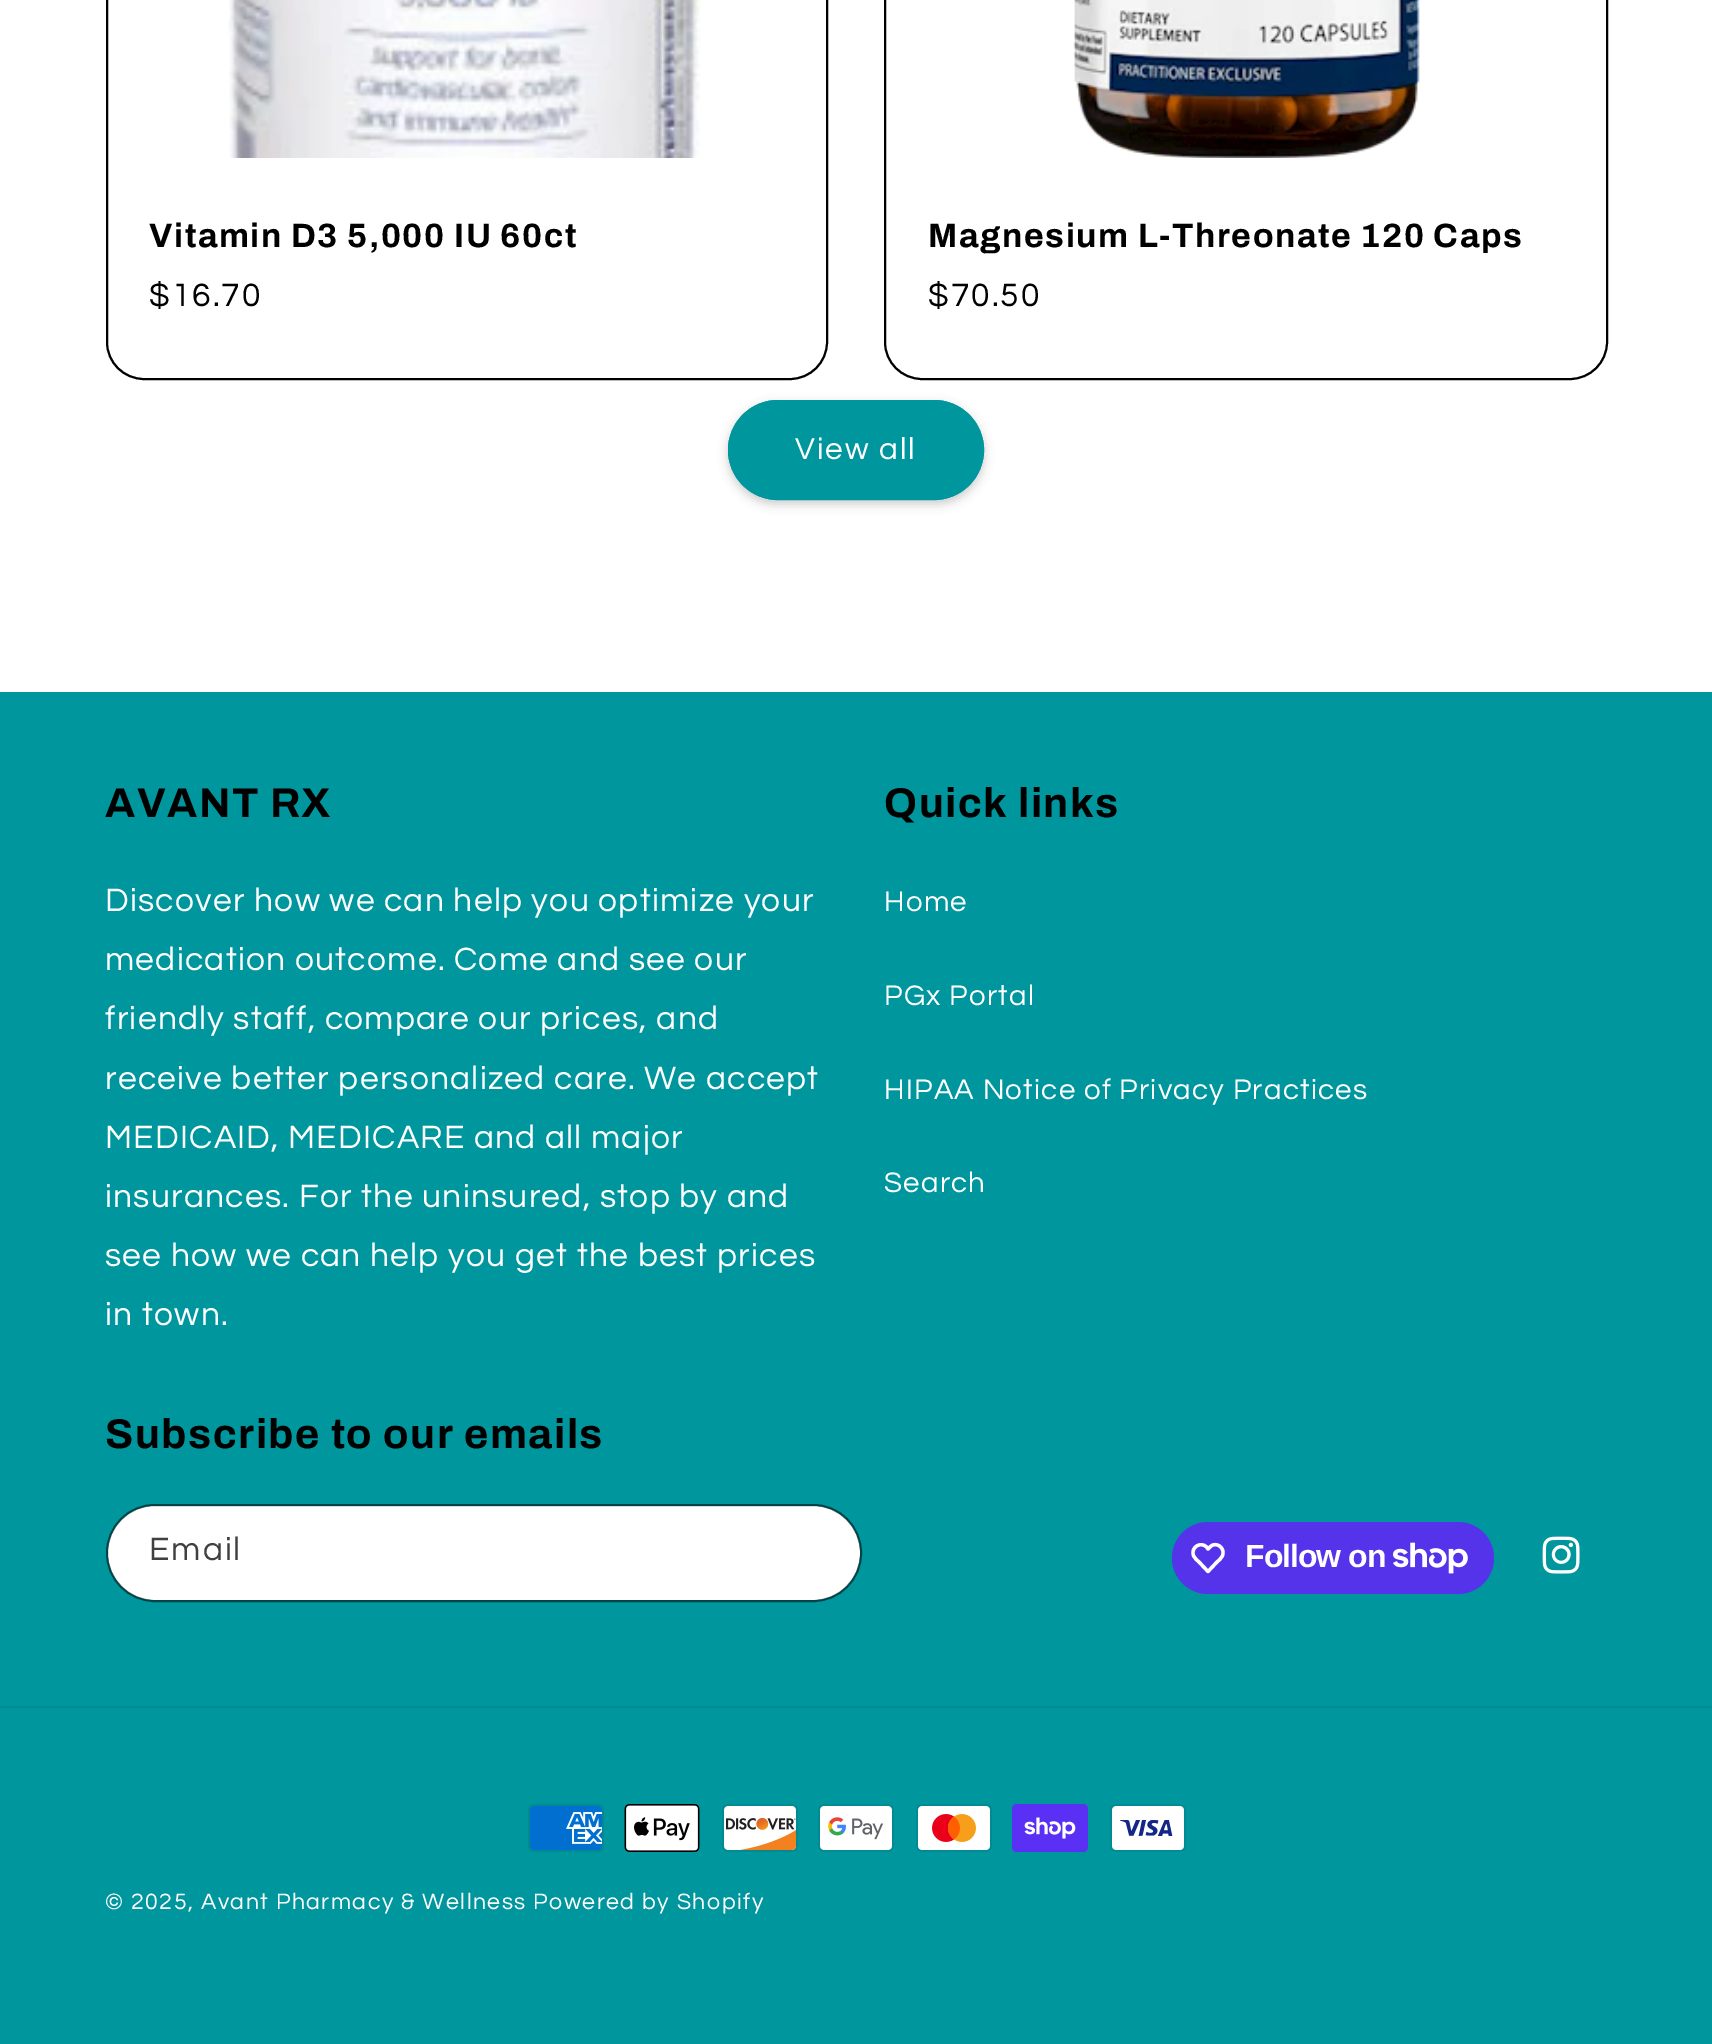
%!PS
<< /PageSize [1712 2044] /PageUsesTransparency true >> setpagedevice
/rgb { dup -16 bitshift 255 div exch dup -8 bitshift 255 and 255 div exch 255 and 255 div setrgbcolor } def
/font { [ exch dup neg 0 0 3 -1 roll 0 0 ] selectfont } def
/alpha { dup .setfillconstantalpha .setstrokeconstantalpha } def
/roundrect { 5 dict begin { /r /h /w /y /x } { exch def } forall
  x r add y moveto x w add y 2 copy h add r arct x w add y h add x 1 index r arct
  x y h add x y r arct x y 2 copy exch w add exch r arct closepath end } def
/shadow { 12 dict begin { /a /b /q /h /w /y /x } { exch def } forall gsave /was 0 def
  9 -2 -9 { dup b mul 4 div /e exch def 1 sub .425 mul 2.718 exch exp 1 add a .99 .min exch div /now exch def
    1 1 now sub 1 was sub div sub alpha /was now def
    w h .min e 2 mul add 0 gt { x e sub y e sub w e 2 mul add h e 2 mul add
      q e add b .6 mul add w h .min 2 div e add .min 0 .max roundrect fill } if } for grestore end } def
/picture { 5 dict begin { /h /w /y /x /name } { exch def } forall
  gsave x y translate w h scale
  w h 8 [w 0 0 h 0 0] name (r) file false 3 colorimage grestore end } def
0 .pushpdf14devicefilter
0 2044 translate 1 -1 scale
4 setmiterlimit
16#FFFFFF rgb
0 0 1712 2044 rectfill
16#000000 rgb
2 setlinewidth
107 -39 720 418 37 roundrect stroke
(pic1.raw) 228 0 473 158 picture
/Archivo-Bold 33.75 font
149 247 moveto 1.55 0 (Vitamin D3 5,000 IU 60ct) ashow
/Questrial-Regular 33.6 font
149 306 moveto 2 0 ($16.70) ashow
885 -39 722 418 37 roundrect stroke
(pic2.raw) 1073 0 347 158 picture
/Archivo-Bold 33.75 font
928 247 moveto 1.55 0 (Magnesium L-Threonate 120 Caps) ashow
/Questrial-Regular 33.6 font
928 306 moveto 2 0 ($70.50) ashow
728 404 256 100 50 5 0.2 shadow
16#00969E rgb
728 400 256 100 50 roundrect fill
729 401 254 98 49 roundrect stroke
/Questrial-Regular 31.5 font
16#FFFFFF rgb
795 459 moveto 2 0 (View all) ashow
16#00969E rgb
0 692 1712 1352 rectfill
/Archivo-Bold 41.6 font
16#000000 rgb
105 817 moveto 1.55 0 (AVANT RX) ashow
/Questrial-Regular 33.6 font
16#FFFFFF rgb
105 911 moveto 1.25 0 (Discover how we can help you optimize your) ashow
105 970 moveto 1.25 0 (medication outcome. Come and see our) ashow
105 1029 moveto 1.25 0 (friendly staff, compare our prices, and) ashow
105 1089 moveto 1.25 0 (receive better personalized care. We accept) ashow
105 1148 moveto 1.25 0 (MEDICAID, MEDICARE and all major) ashow
105 1207 moveto 1.25 0 (insurances. For the uninsured, stop by and) ashow
105 1266 moveto 1.25 0 (see how we can help you get the best prices) ashow
105 1325 moveto 1.25 0 (in town.) ashow
/Archivo-Bold 41.6 font
16#000000 rgb
884 817 moveto 1.55 0 (Quick links) ashow
/Questrial-Regular 29.4 font
16#FFFFFF rgb
884 911 moveto 1.25 0 (Home) ashow
884 1005 moveto 1.25 0 (PGx Portal) ashow
884 1099 moveto 1.25 0 (HIPAA Notice of Privacy Practices) ashow
884 1192 moveto 1.25 0 (Search) ashow
/Archivo-Bold 41.6 font
16#000000 rgb
105 1448 moveto 1.55 0 (Subscribe to our emails) ashow
16#FFFFFF rgb
108 1506 752 94 47 roundrect fill
0.55 alpha
16#000000 rgb
107 1505 754 96 48 roundrect stroke
/Questrial-Regular 33.6 font
1 alpha
16#404040 rgb
149 1560 moveto 2 0 (Email) ashow
16#5433EB rgb
1172 1522 322 72 36 roundrect fill
16#FFFFFF rgb
3.3 setlinewidth
1 setlinejoin
1206.5 1547 moveto 1208 1549 lineto 1209.5 1547.5 1211 1545.5 1213 1545 curveto 1219 1543 1225 1549.5 1222.5 1555.5 curveto 1221.5 1558.5 1218.5 1560.5 1216.5 1562.5 curveto 1208 1571.5 lineto 1199.5 1562.5 lineto 1197.5 1560.5 1194.5 1558.5 1193.5 1555.5 curveto 1190.5 1547.5 1200.5 1541 1206.5 1547 curveto closepath stroke
/LiberationSans-Bold 32 font
1245 1567 moveto -1 0 (Follow on) ashow
(pic3.raw) 1393 1542 75 32 picture
(pic4.raw) 1542 1536 38 38 picture
16#008A91 rgb
0 1706 1712 2 rectfill
(pic5.raw) 528 1804 76 48 picture
(pic6.raw) 624 1804 76 48 picture
(pic7.raw) 722 1804 76 48 picture
(pic8.raw) 818 1804 76 48 picture
(pic9.raw) 916 1804 76 48 picture
(pic10.raw) 1012 1804 76 48 picture
(pic11.raw) 1110 1804 76 48 picture
/Questrial-Regular 23.1 font
16#FFFFFF rgb
105 1909 moveto 1.5 0 (© 2025, Avant Pharmacy & Wellness) ashow
533 1909 moveto 1.5 0 (Powered by Shopify) ashow
.poppdf14devicefilter showpage
